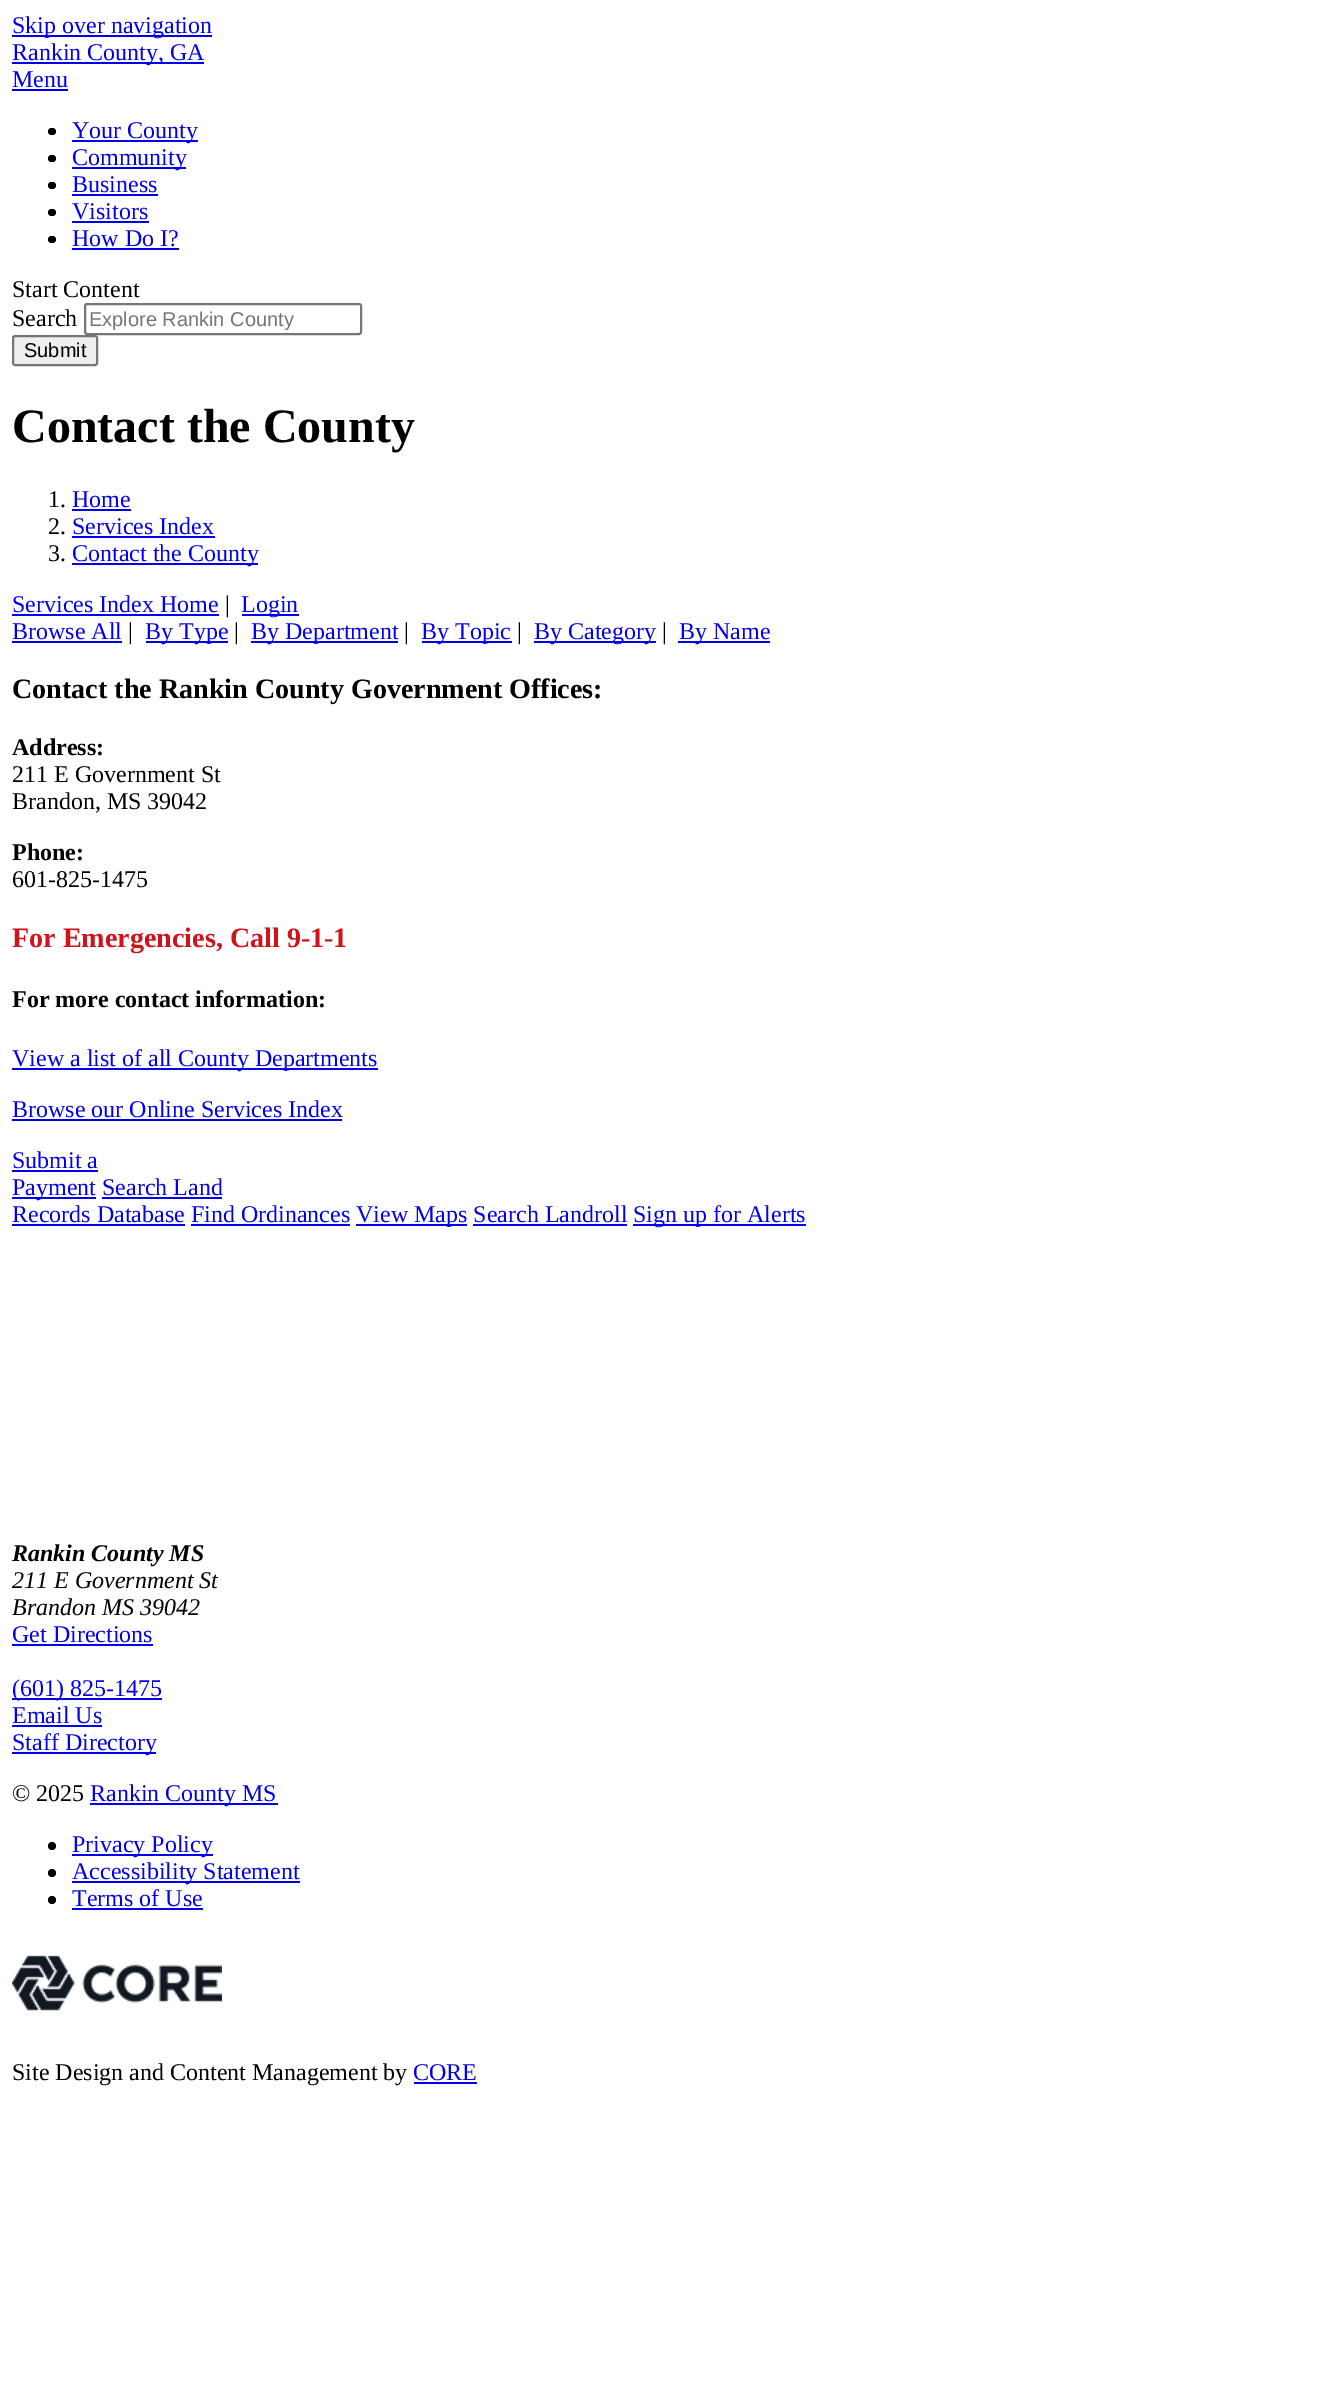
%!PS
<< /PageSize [1326 2390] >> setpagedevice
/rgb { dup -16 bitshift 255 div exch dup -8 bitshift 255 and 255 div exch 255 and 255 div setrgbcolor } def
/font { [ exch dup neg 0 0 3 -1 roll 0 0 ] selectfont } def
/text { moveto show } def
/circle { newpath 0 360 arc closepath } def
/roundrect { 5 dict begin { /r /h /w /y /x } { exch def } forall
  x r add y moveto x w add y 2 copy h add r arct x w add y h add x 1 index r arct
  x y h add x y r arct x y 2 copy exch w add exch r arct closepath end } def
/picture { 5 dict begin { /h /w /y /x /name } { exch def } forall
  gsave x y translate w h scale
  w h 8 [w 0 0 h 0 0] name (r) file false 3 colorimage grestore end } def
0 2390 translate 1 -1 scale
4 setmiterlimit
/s1 { /LiberationSerif-Regular 24 font 16#0000EE rgb } def
/s2 { /LiberationSerif-Regular 24 font 16#000000 rgb } def
/s3 { /LiberationSans-Regular 20 font 16#757575 rgb } def
/s4 { /LiberationSans-Regular 20 font 16#000000 rgb } def
/s5 { /LiberationSerif-Bold 48 font 16#000000 rgb } def
/s6 { /LiberationSerif-Bold 28.1 font 16#000000 rgb } def
/s7 { /LiberationSerif-Bold 24 font 16#000000 rgb } def
/s8 { /LiberationSerif-Bold 28.1 font 16#D0131A rgb } def
/s9 { /LiberationSerif-BoldItalic 24 font 16#000000 rgb } def
/s10 { /LiberationSerif-Italic 24 font 16#000000 rgb } def
16#FFFFFF rgb
0 0 1326 2390 rectfill
16#0000EE rgb
12 35 200 2 rectfill
s1
(Skip over navigation) 12 33 text
12 62 192 2 rectfill
(Rankin County, GA) 12 60 text
(Menu) 12 87 text
12 89 56 2 rectfill
16#000000 rgb
48 128 8 7 3.5 roundrect fill
16#0000EE rgb
72 140 126 2 rectfill
(Your County) 72 138 text
16#000000 rgb
48 155 8 7 3.5 roundrect fill
16#0000EE rgb
72 167 114 2 rectfill
(Community) 72 165 text
16#000000 rgb
48 182 8 7 3.5 roundrect fill
s1
(Business) 72 192 text
72 194 86 2 rectfill
16#000000 rgb
48 209 8 7 3.5 roundrect fill
s1
(Visitors) 72 219 text
72 221 77 2 rectfill
16#000000 rgb
48 236 8 7 3.5 roundrect fill
s1
(How Do I?) 72 246 text
72 248 107 2 rectfill
s2
(Start Content) 12 297 text
(Search) 12 326 text
16#767676 rgb
2 setlinewidth
85 304 276 30 2 roundrect stroke
gsave
90 308 246 22 rectclip
s3
(Explore Rankin County) 89 326 text
grestore
16#EFEFEF rgb
13 336 84 29 2 roundrect gsave fill grestore
16#767676 rgb
stroke
s4
(Submit) 24 357 text
s5
(Contact the County) 12 442 text
s2
(1.) 48 507 text
s1
(Home) 72 507 text
72 509 59 2 rectfill
s2
(2.) 48 534 text
s1
(Services Index) 72 534 text
72 536 143 2 rectfill
s2
(3.) 48 561 text
16#0000EE rgb
72 563 186 2 rectfill
(Contact the County) 72 561 text
(Services Index Home) 12 612 text
12 614 207 2 rectfill
s2
(|) 225 612 text
16#0000EE rgb
242 614 57 2 rectfill
(Login) 241 612 text
(Browse All) 12 639 text
12 641 110 2 rectfill
s2
(|) 128 639 text
16#0000EE rgb
146 641 82 2 rectfill
(By Type) 145 639 text
s2
(|) 234 639 text
16#0000EE rgb
251 641 147 2 rectfill
(By Department) 251 639 text
s2
(|) 404 639 text
16#0000EE rgb
422 641 90 2 rectfill
(By Topic) 421 639 text
s2
(|) 517 639 text
16#0000EE rgb
534 641 122 2 rectfill
(By Category) 534 639 text
s2
(|) 662 639 text
16#0000EE rgb
678 641 92 2 rectfill
(By Name) 679 639 text
s6
(Contact the Rankin County Government Offices:) 12 698 text
s7
(Address:) 12 755 text
s2
(211 E Government St) 12 782 text
(Brandon, MS 39042) 12 809 text
s7
(Phone:) 12 860 text
s2
(601-825-1475) 12 887 text
s8
(For Emergencies, Call 9-1-1) 12 947 text
s7
(For more contact information:) 12 1007 text
16#0000EE rgb
12 1068 366 2 rectfill
s1
(View a list of all County Departments) 12 1066 text
(Browse our Online Services Index) 12 1117 text
12 1119 330 2 rectfill
(Submit a) 12 1168 text
12 1170 86 2 rectfill
12 1197 84 2 rectfill
(Payment Search Land) 12 1195 text
(Records Database Find Ordinances) 12 1222 text
102 1197 120 2 rectfill
12 1224 173 2 rectfill
356 1224 111 2 rectfill
(View Maps Search Landroll) 356 1222 text
633 1224 173 2 rectfill
(Sign up for Alerts) 633 1222 text
191 1224 159 2 rectfill
473 1224 154 2 rectfill
s9
(Rankin County MS) 12 1561 text
s10
(211 E Government St) 12 1588 text
(Brandon MS 39042) 12 1615 text
s1
(Get Directions) 12 1642 text
12 1644 141 2 rectfill
12 1698 150 2 rectfill
(\(601\) 825-1475) 12 1696 text
(Email Us) 12 1723 text
12 1725 90 2 rectfill
12 1752 144 2 rectfill
(Staff Directory) 12 1750 text
s2
(© 2025) 12 1801 text
16#0000EE rgb
90 1803 188 2 rectfill
(Rankin County MS) 90 1801 text
16#000000 rgb
52 1846 4 circle fill
16#0000EE rgb
72 1854 141 2 rectfill
(Privacy Policy) 72 1852 text
16#000000 rgb
52 1873 4 circle fill
16#0000EE rgb
72 1881 228 2 rectfill
(Accessibility Statement) 72 1879 text
16#000000 rgb
52 1900 4 circle fill
s1
(Terms of Use) 72 1906 text
72 1908 131 2 rectfill
(pic1.raw) 12 1955 210 56 picture
s2
(Site Design and Content Management by) 12 2080 text
s1
(CORE) 413 2080 text
414 2082 63 2 rectfill
showpage
